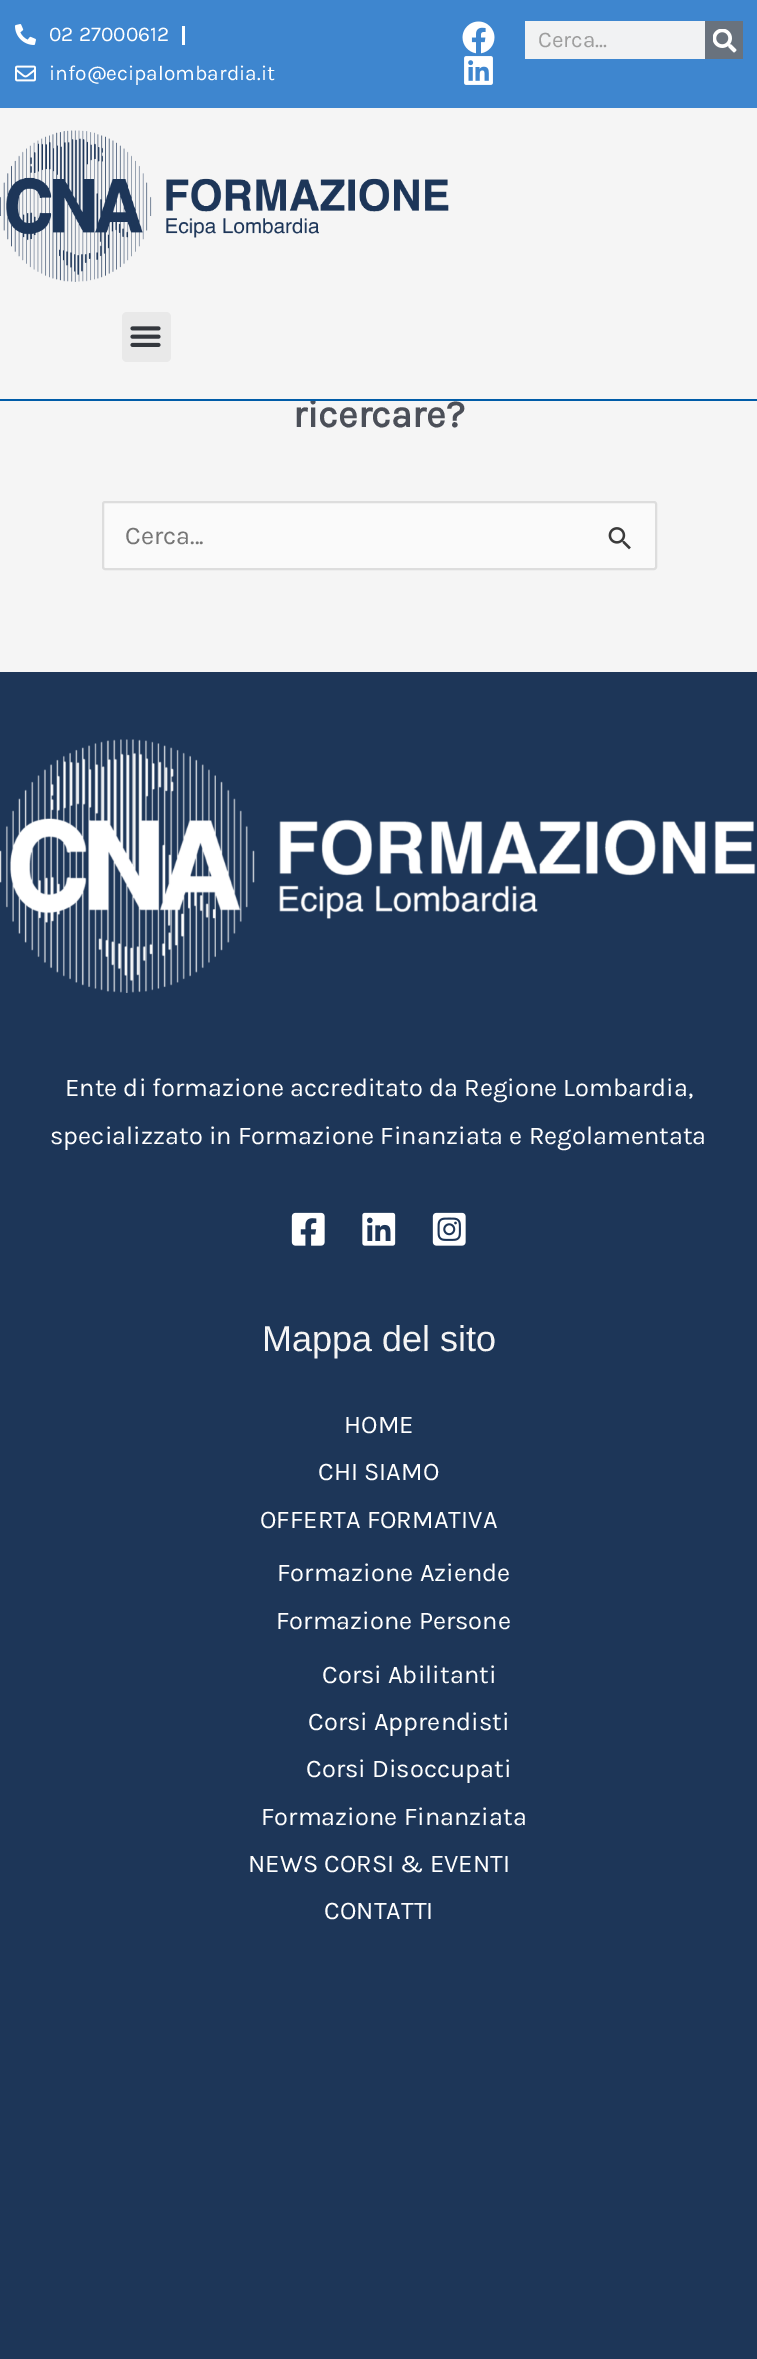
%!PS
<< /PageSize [757 2359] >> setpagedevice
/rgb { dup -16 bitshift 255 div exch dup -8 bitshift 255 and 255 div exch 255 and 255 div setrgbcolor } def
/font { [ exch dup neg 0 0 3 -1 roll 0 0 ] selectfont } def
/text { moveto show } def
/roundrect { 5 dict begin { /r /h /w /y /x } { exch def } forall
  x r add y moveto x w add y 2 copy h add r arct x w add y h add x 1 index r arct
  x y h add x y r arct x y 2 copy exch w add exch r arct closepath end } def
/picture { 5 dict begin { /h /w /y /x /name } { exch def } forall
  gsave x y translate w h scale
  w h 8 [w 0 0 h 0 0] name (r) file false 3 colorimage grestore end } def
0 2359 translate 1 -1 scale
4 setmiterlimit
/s1 { /Karla-Regular 21 font 16#FFFFFF rgb } def
/s2 { /Karla-Regular 22.5 font 16#9E9E9E rgb } def
/s3 { /Karla-Bold 38.25 font 16#4B4F58 rgb } def
/s4 { /Karla-Regular 25.5 font 16#757575 rgb } def
/s5 { /Karla-Regular 25.5 font 16#FFFFFF rgb } def
/s6 { /LiberationSans-Regular 36 font 16#F5F5F5 rgb } def
16#F5F5F5 rgb
0 0 757 2359 rectfill
16#3E86CF rgb
0 0 757 108 rectfill
(pic1.raw) 15 24 21 21 picture
s1
(02 27000612) 49 41 text
182 26 3 19 rectfill
(pic2.raw) 15 65 21 17 picture
(info@ecipalombardia.it) 49 80 text
(pic3.raw) 462 21 33 33 picture
(pic4.raw) 464 56 29 29 picture
16#F1F2F3 rgb
525 21 180 38 rectfill
s2
(Cerca...) 538 47 text
16#69727D rgb
705 21 38 38 rectfill
(pic5.raw) 713 29 24 24 picture
s3
(ricercare?) 293 427 text
16#005CA8 rgb
0 399 757 2 rectfill
(pic6.raw) 0 130 449 152 picture
16#E9E9E9 rgb
122 312 49 50 5 roundrect fill
(pic7.raw) 130 326 31 21 picture
16#FAFAFA rgb
103 502 553 67 2 roundrect gsave fill grestore
16#DDDDDD rgb
2 setlinewidth
stroke
s4
(Cerca...) 125 544 text
(pic8.raw) 608 527 23 23 picture
16#1D3658 rgb
0 672 757 1687 rectfill
(pic9.raw) 0 739 756 254 picture
s5
(Ente di formazione accreditato da Regione Lombardia,) 65 1096 text
(specializzato in Formazione Finanziata e Regolamentata) 50 1144 text
(pic10.raw) 291 1212 34 34 picture
(pic11.raw) 362 1212 34 34 picture
(pic12.raw) 432 1212 34 34 picture
s6
(Mappa del sito) 262 1351 text
s5
(HOME) 344 1433 text
(CHI SIAMO) 318 1480 text
(OFFERTA FORMATIVA) 260 1528 text
(Formazione Aziende) 277 1581 text
(Formazione Persone) 276 1629 text
(Corsi Abilitanti) 322 1683 text
(Corsi Apprendisti) 308 1730 text
(Corsi Disoccupati) 306 1777 text
(Formazione Finanziata) 261 1825 text
(NEWS CORSI & EVENTI) 248 1872 text
(CONTATTI) 324 1919 text
showpage
